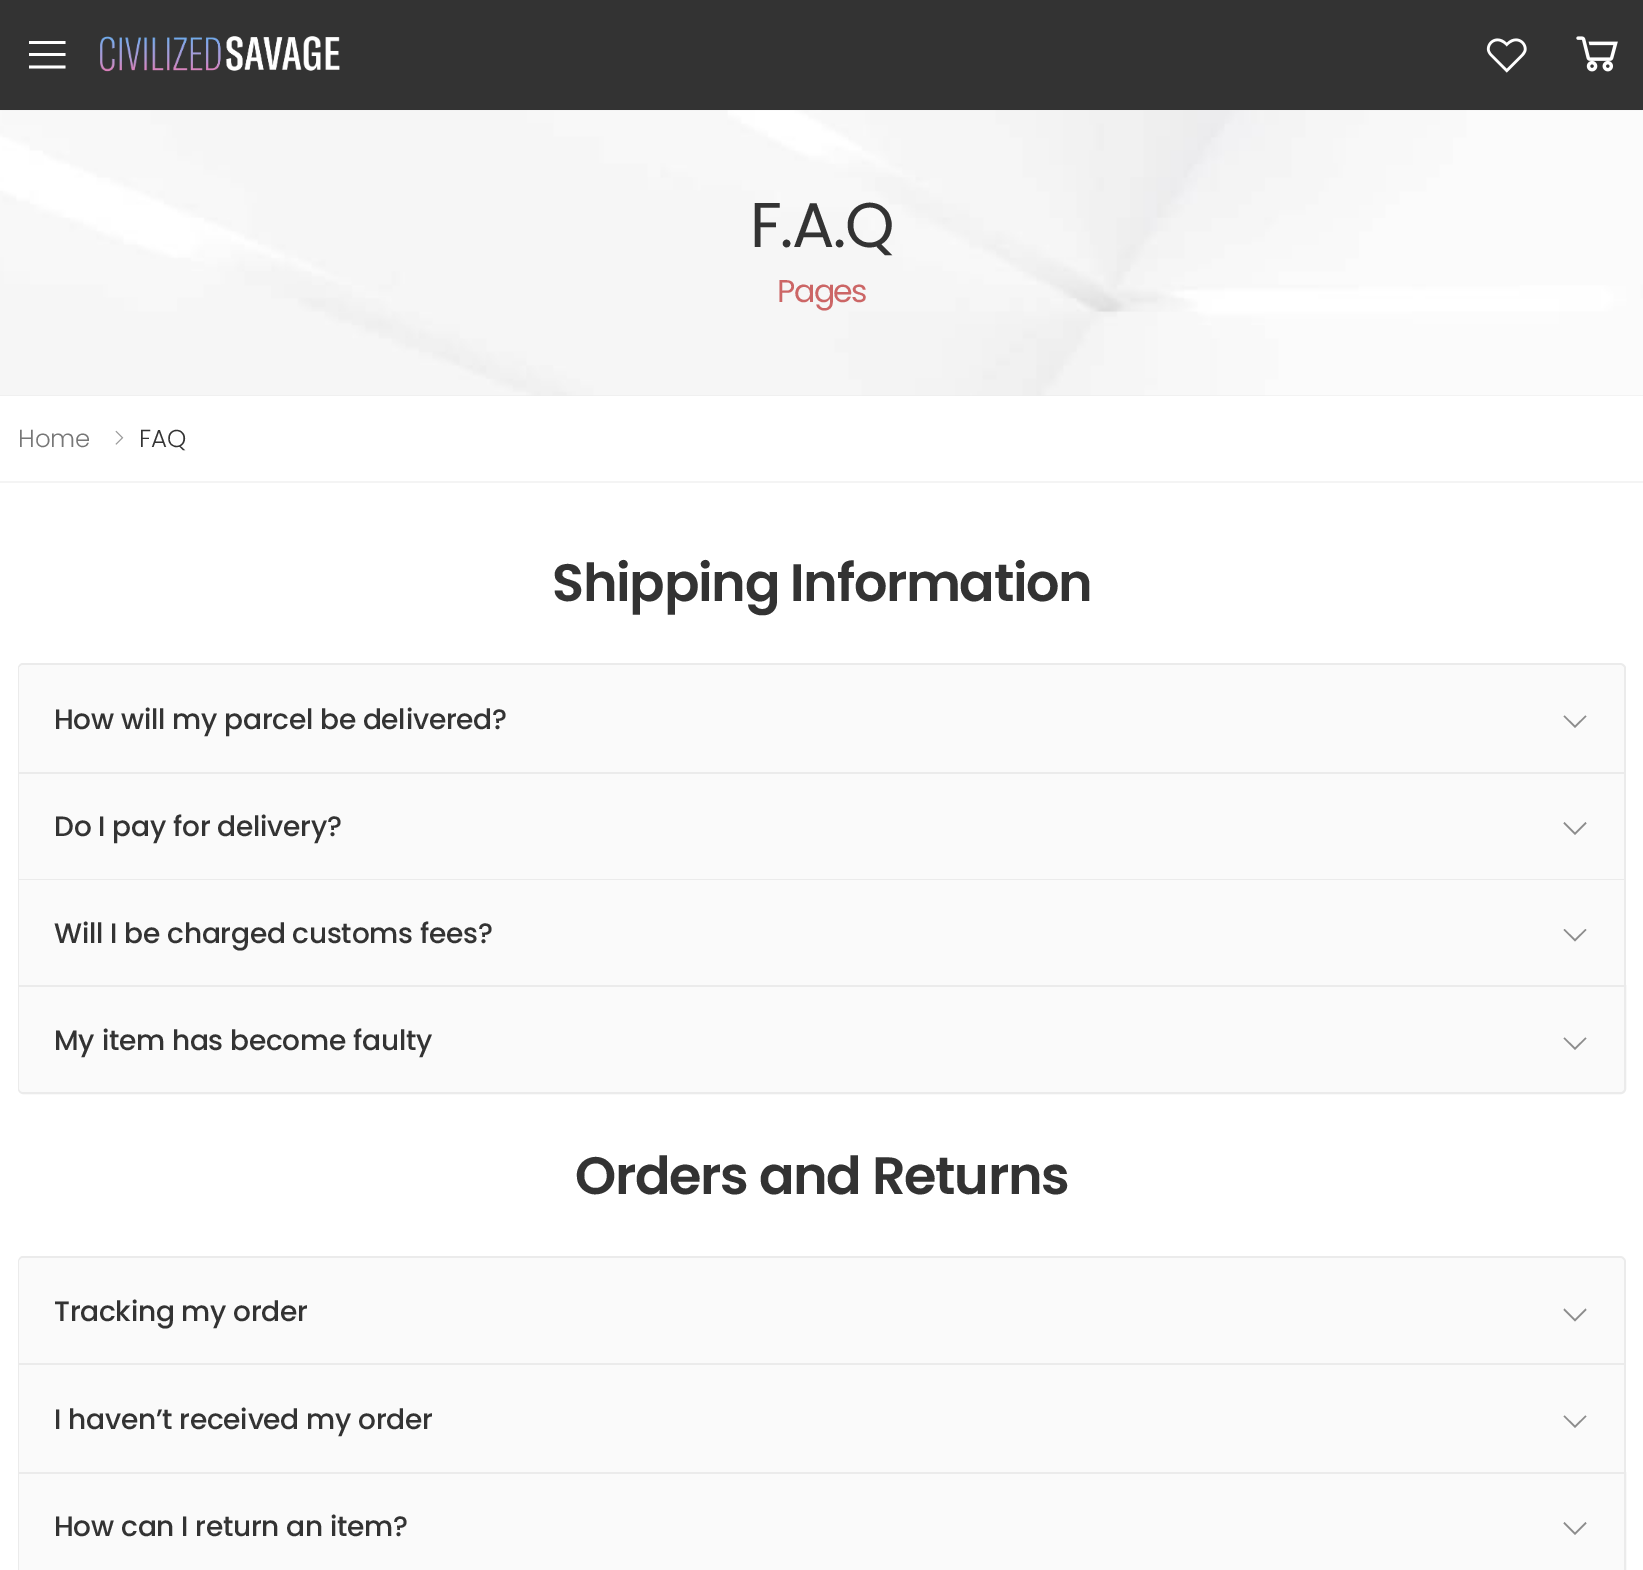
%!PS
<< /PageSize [1643 1570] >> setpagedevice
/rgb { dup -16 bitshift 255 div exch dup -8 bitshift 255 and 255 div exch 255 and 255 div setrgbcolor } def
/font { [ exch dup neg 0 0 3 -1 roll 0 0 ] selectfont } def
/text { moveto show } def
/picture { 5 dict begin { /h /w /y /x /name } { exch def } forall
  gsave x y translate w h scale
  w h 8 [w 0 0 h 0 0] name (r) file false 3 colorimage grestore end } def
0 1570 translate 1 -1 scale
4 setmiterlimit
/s1 { /Poppins-Light 24.5 font 16#777777 rgb } def
/s2 { /Poppins-Light 24.5 font 16#333333 rgb } def
16#FFFFFF rgb
0 0 1643 1570 rectfill
16#333333 rgb
0 0 1643 110 rectfill
16#FFFFFF rgb
29 41 moveto 65.5 41 lineto 65.5 44 lineto 29 44 lineto closepath 29 53 moveto 65.5 53 lineto 65.5 56 lineto 29 56 lineto closepath 29 65.5 moveto 65.5 65.5 lineto 65.5 68.5 lineto 29 68.5 lineto closepath fill
(pic1.raw) 100 36 240 36 picture
(pic2.raw) 1486 38 41 35 picture
(pic3.raw) 1576 36 42 36 picture
16#EBEBEB rgb
0 110 1643 286 rectfill
(pic4.raw) 0 110 1643 286 picture
/Poppins-Regular 63 font
16#333333 rgb
750 247 moveto -1.5 0 (F.A.Q) ashow
/Poppins-Regular 31.5 font
16#CC6666 rgb
777 302 moveto -1.5 0 (Pages) ashow
16#F4F4F4 rgb
0 481 1643 2 rectfill
s1
(Home) 18 447 text
(pic5.raw) 115 430 9 15 picture
s2
(FAQ) 139 447 text
/Poppins-SemiBold 52.5 font
552 601 moveto -1.3 0 (Shipping Information) ashow
16#EBEBEB rgb
23 663 moveto 1620 663 lineto 1623 663 1626 666 1626 668 curveto 1626 772 lineto 18 772 lineto 18 668 lineto 18 666 20 663 23 663 curveto closepath 23 665 moveto 1620 665 lineto 1622 665 1624 667 1624 668 curveto 1624 772 lineto 19 772 lineto 19 668 lineto 19 667 21 665 23 665 curveto closepath eofill
16#FAFAFA rgb
23 665 moveto 1620 665 lineto 1622 665 1624 667 1624 669 curveto 1624 772 lineto 19 772 lineto 19 669 lineto 19 667 21 665 23 665 curveto closepath fill
/Poppins-Medium 28 font
16#333333 rgb
54 729 moveto -0.25 0 (How will my parcel be delivered?) ashow
16#8C8C8C rgb
1564.5 715.5 moveto 1575 725.5 lineto 1585.5 715.5 lineto 1586.5 716.5 lineto 1575 728 lineto 1563.5 716.5 lineto closepath fill
16#EBEBEB rgb
18 772 1608 2 rectfill
1624 772 2 107 rectfill
18 772 2 107 rectfill
16#FAFAFA rgb
19 774 1605 105 rectfill
16#333333 rgb
54 836 moveto -0.25 0 (Do I pay for delivery?) ashow
16#8C8C8C rgb
1564.5 822 moveto 1575 832.5 lineto 1585.5 822 lineto 1586.5 823.5 lineto 1575 835 lineto 1563.5 823.5 lineto closepath fill
16#EBEBEB rgb
18 879 1608 1 rectfill
1624 879 2 106 rectfill
18 879 2 106 rectfill
16#FAFAFA rgb
19 880 1605 105 rectfill
16#333333 rgb
54 943 moveto -0.25 0 (Will I be charged customs fees?) ashow
16#8C8C8C rgb
1564.5 929 moveto 1575 939 lineto 1585.5 929 lineto 1586.5 930 lineto 1575 941.5 lineto 1563.5 930 lineto closepath fill
16#EBEBEB rgb
2 setlinewidth
19 986 moveto 1625 986 lineto 1625 1089 lineto 1625 1091 1623 1093 1621 1093 curveto 23 1093 lineto 21 1093 19 1091 19 1089 curveto closepath stroke
16#FAFAFA rgb
19 987 moveto 1624 987 lineto 1624 1088 lineto 1624 1090 1622 1092 1620 1092 curveto 23 1092 lineto 21 1092 19 1090 19 1088 curveto closepath fill
16#333333 rgb
54 1050 moveto -0.25 0 (My item has become faulty) ashow
16#8C8C8C rgb
1564.5 1037.5 moveto 1575 1047.5 lineto 1585.5 1037.5 lineto 1586.5 1038.5 lineto 1575 1050 lineto 1563.5 1038.5 lineto closepath fill
/Poppins-SemiBold 52.5 font
16#333333 rgb
575 1194 moveto -1.3 0 (Orders and Returns) ashow
16#EBEBEB rgb
23 1256 moveto 1620 1256 lineto 1623 1256 1626 1259 1626 1262 curveto 1626 1363 lineto 18 1363 lineto 18 1262 lineto 18 1259 20 1256 23 1256 curveto closepath 23 1258 moveto 1620 1258 lineto 1622 1258 1624 1260 1624 1262 curveto 1624 1363 lineto 19 1363 lineto 19 1262 lineto 19 1260 21 1258 23 1258 curveto closepath eofill
16#FAFAFA rgb
23 1258 moveto 1620 1258 lineto 1622 1258 1624 1260 1624 1262 curveto 1624 1363 lineto 19 1363 lineto 19 1262 lineto 19 1260 21 1258 23 1258 curveto closepath fill
/Poppins-Medium 28 font
16#333333 rgb
54 1321 moveto -0.25 0 (Tracking my order) ashow
16#8C8C8C rgb
1564.5 1308.5 moveto 1575 1319 lineto 1585.5 1308.5 lineto 1586.5 1310 lineto 1575 1321.5 lineto 1563.5 1310 lineto closepath fill
16#EBEBEB rgb
18 1363 1608 2 rectfill
1624 1363 2 109 rectfill
18 1363 2 109 rectfill
16#FAFAFA rgb
19 1365 1605 107 rectfill
16#333333 rgb
54 1429 moveto -0.25 0 (I haven’t received my order) ashow
16#8C8C8C rgb
1564.5 1415.5 moveto 1575 1425.5 lineto 1585.5 1415.5 lineto 1586.5 1416.5 lineto 1575 1428 lineto 1563.5 1416.5 lineto closepath fill
16#EBEBEB rgb
19 1473 1606 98 rectstroke
16#FAFAFA rgb
19 1474 1605 96 rectfill
16#333333 rgb
54 1536 moveto -0.25 0 (How can I return an item?) ashow
16#8C8C8C rgb
1564.5 1522 moveto 1575 1532.5 lineto 1585.5 1522 lineto 1586.5 1523.5 lineto 1575 1535 lineto 1563.5 1523.5 lineto closepath fill
showpage
